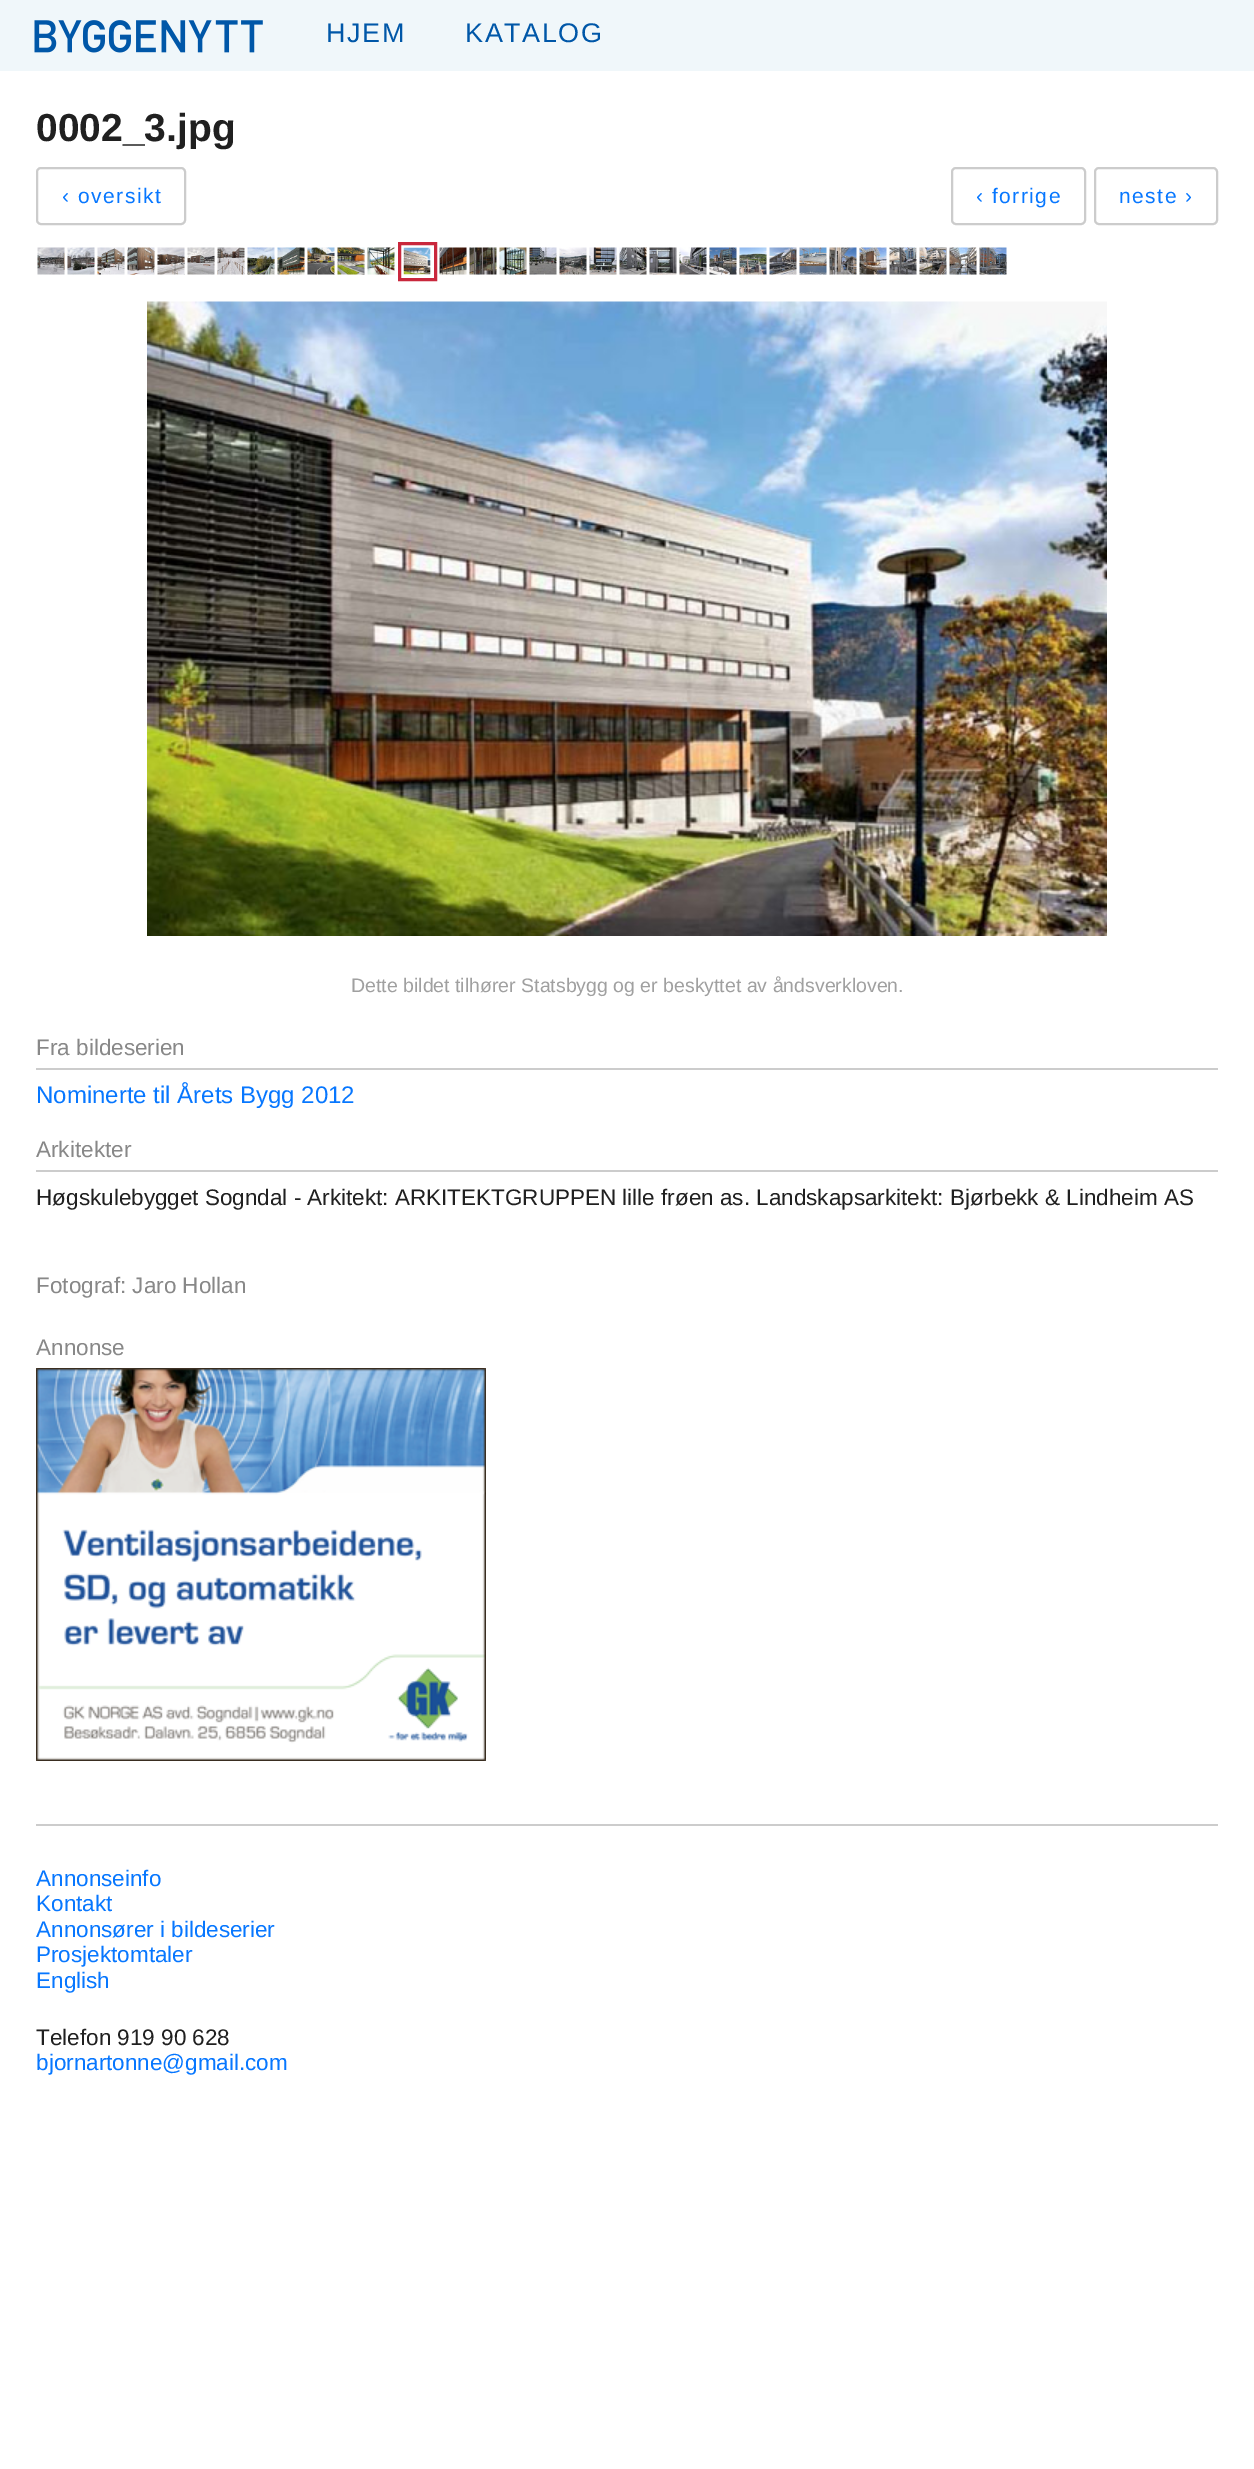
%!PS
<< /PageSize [1254 2469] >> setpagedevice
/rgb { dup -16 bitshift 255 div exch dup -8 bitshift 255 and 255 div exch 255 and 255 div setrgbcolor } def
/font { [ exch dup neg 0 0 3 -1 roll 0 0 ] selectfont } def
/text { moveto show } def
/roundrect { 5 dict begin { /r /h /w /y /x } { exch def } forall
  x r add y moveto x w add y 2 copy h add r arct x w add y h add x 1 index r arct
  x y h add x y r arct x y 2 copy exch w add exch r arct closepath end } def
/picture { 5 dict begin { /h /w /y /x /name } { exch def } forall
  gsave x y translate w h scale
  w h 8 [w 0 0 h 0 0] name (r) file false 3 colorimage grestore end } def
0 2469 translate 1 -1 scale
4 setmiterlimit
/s1 { /LiberationSans-Bold 39 font 16#202020 rgb } def
/s2 { /LiberationSans-Regular 19.5 font 16#A0A0A0 rgb } def
/s3 { /LiberationSans-Regular 22.5 font 16#888888 rgb } def
/s4 { /LiberationSans-Regular 24 font 16#0777FF rgb } def
/s5 { /LiberationSans-Regular 22.5 font 16#202020 rgb } def
/s6 { /LiberationSans-Regular 22.5 font 16#0777FF rgb } def
16#FFFFFF rgb
0 0 1254 2469 rectfill
16#F0F7FA rgb
0 0 1254 71 rectfill
(pic1.raw) 34 20 229 33 picture
/LiberationSans-Regular 27 font
16#0057A8 rgb
326 42 moveto 1.5 0 (HJEM) ashow
465 42 moveto 1.5 0 (KATALOG) ashow
s1
(0002_3.jpg) 36 141 text
16#CCCCCC rgb
2 setlinewidth
37 168 148 56 4 roundrect stroke
/LiberationSans-Regular 21 font
16#0777FF rgb
62 203 moveto 1.5 0 (‹ oversikt) ashow
16#CCCCCC rgb
952 168 133 56 4 roundrect stroke
16#0777FF rgb
976 203 moveto 1.5 0 (‹ forrige) ashow
16#CCCCCC rgb
1095 168 122 56 4 roundrect stroke
16#0777FF rgb
1119 203 moveto 1.5 0 (neste ›) ashow
(pic2.raw) 37 247 28 28 picture
(pic3.raw) 67 247 28 28 picture
(pic4.raw) 97 247 28 28 picture
(pic5.raw) 127 247 28 28 picture
(pic6.raw) 157 247 28 28 picture
(pic7.raw) 187 247 28 28 picture
(pic8.raw) 217 247 28 28 picture
(pic9.raw) 247 247 28 28 picture
(pic10.raw) 277 247 28 28 picture
(pic11.raw) 307 247 28 28 picture
(pic12.raw) 337 247 28 28 picture
(pic13.raw) 367 247 28 28 picture
16#C9273C rgb
3 setlinewidth
399.5 243.5 36 36 rectstroke
(pic14.raw) 403 247 28 28 picture
(pic15.raw) 439 247 28 28 picture
(pic16.raw) 469 247 28 28 picture
(pic17.raw) 499 247 28 28 picture
(pic18.raw) 529 247 28 28 picture
(pic19.raw) 559 247 28 28 picture
(pic20.raw) 589 247 28 28 picture
(pic21.raw) 619 247 28 28 picture
(pic22.raw) 649 247 28 28 picture
(pic23.raw) 679 247 28 28 picture
(pic24.raw) 709 247 28 28 picture
(pic25.raw) 739 247 28 28 picture
(pic26.raw) 769 247 28 28 picture
(pic27.raw) 799 247 28 28 picture
(pic28.raw) 829 247 28 28 picture
(pic29.raw) 859 247 28 28 picture
(pic30.raw) 889 247 28 28 picture
(pic31.raw) 919 247 28 28 picture
(pic32.raw) 949 247 28 28 picture
(pic33.raw) 979 247 28 28 picture
(pic34.raw) 147 301 960 635 picture
s2
(Dette bildet tilhører Statsbygg og er beskyttet av åndsverkloven.) 351 992 text
s3
(Fra bildeserien) 36 1055 text
16#CCCCCC rgb
36 1068 1182 2 rectfill
s4
(Nominerte til Årets Bygg 2012) 36 1103 text
s3
(Arkitekter) 36 1157 text
16#CCCCCC rgb
36 1170 1182 2 rectfill
s5
(Høgskulebygget Sogndal - Arkitekt: ARKITEKTGRUPPEN lille frøen as. Landskapsarkitekt: Bjørbekk & Lindheim AS) 36 1205 text
s3
(Fotograf: Jaro Hollan) 36 1293 text
(Annonse) 36 1355 text
(pic35.raw) 36 1368 450 393 picture
16#CCCCCC rgb
36 1824 1182 2 rectfill
s6
(Annonseinfo) 36 1886 text
(Kontakt) 36 1911 text
(Annonsører i bildeserier) 36 1937 text
(Prosjektomtaler) 36 1962 text
(English) 36 1988 text
s5
(Telefon 919 90 628) 36 2045 text
s6
(bjornartonne@gmail.com) 36 2070 text
showpage
